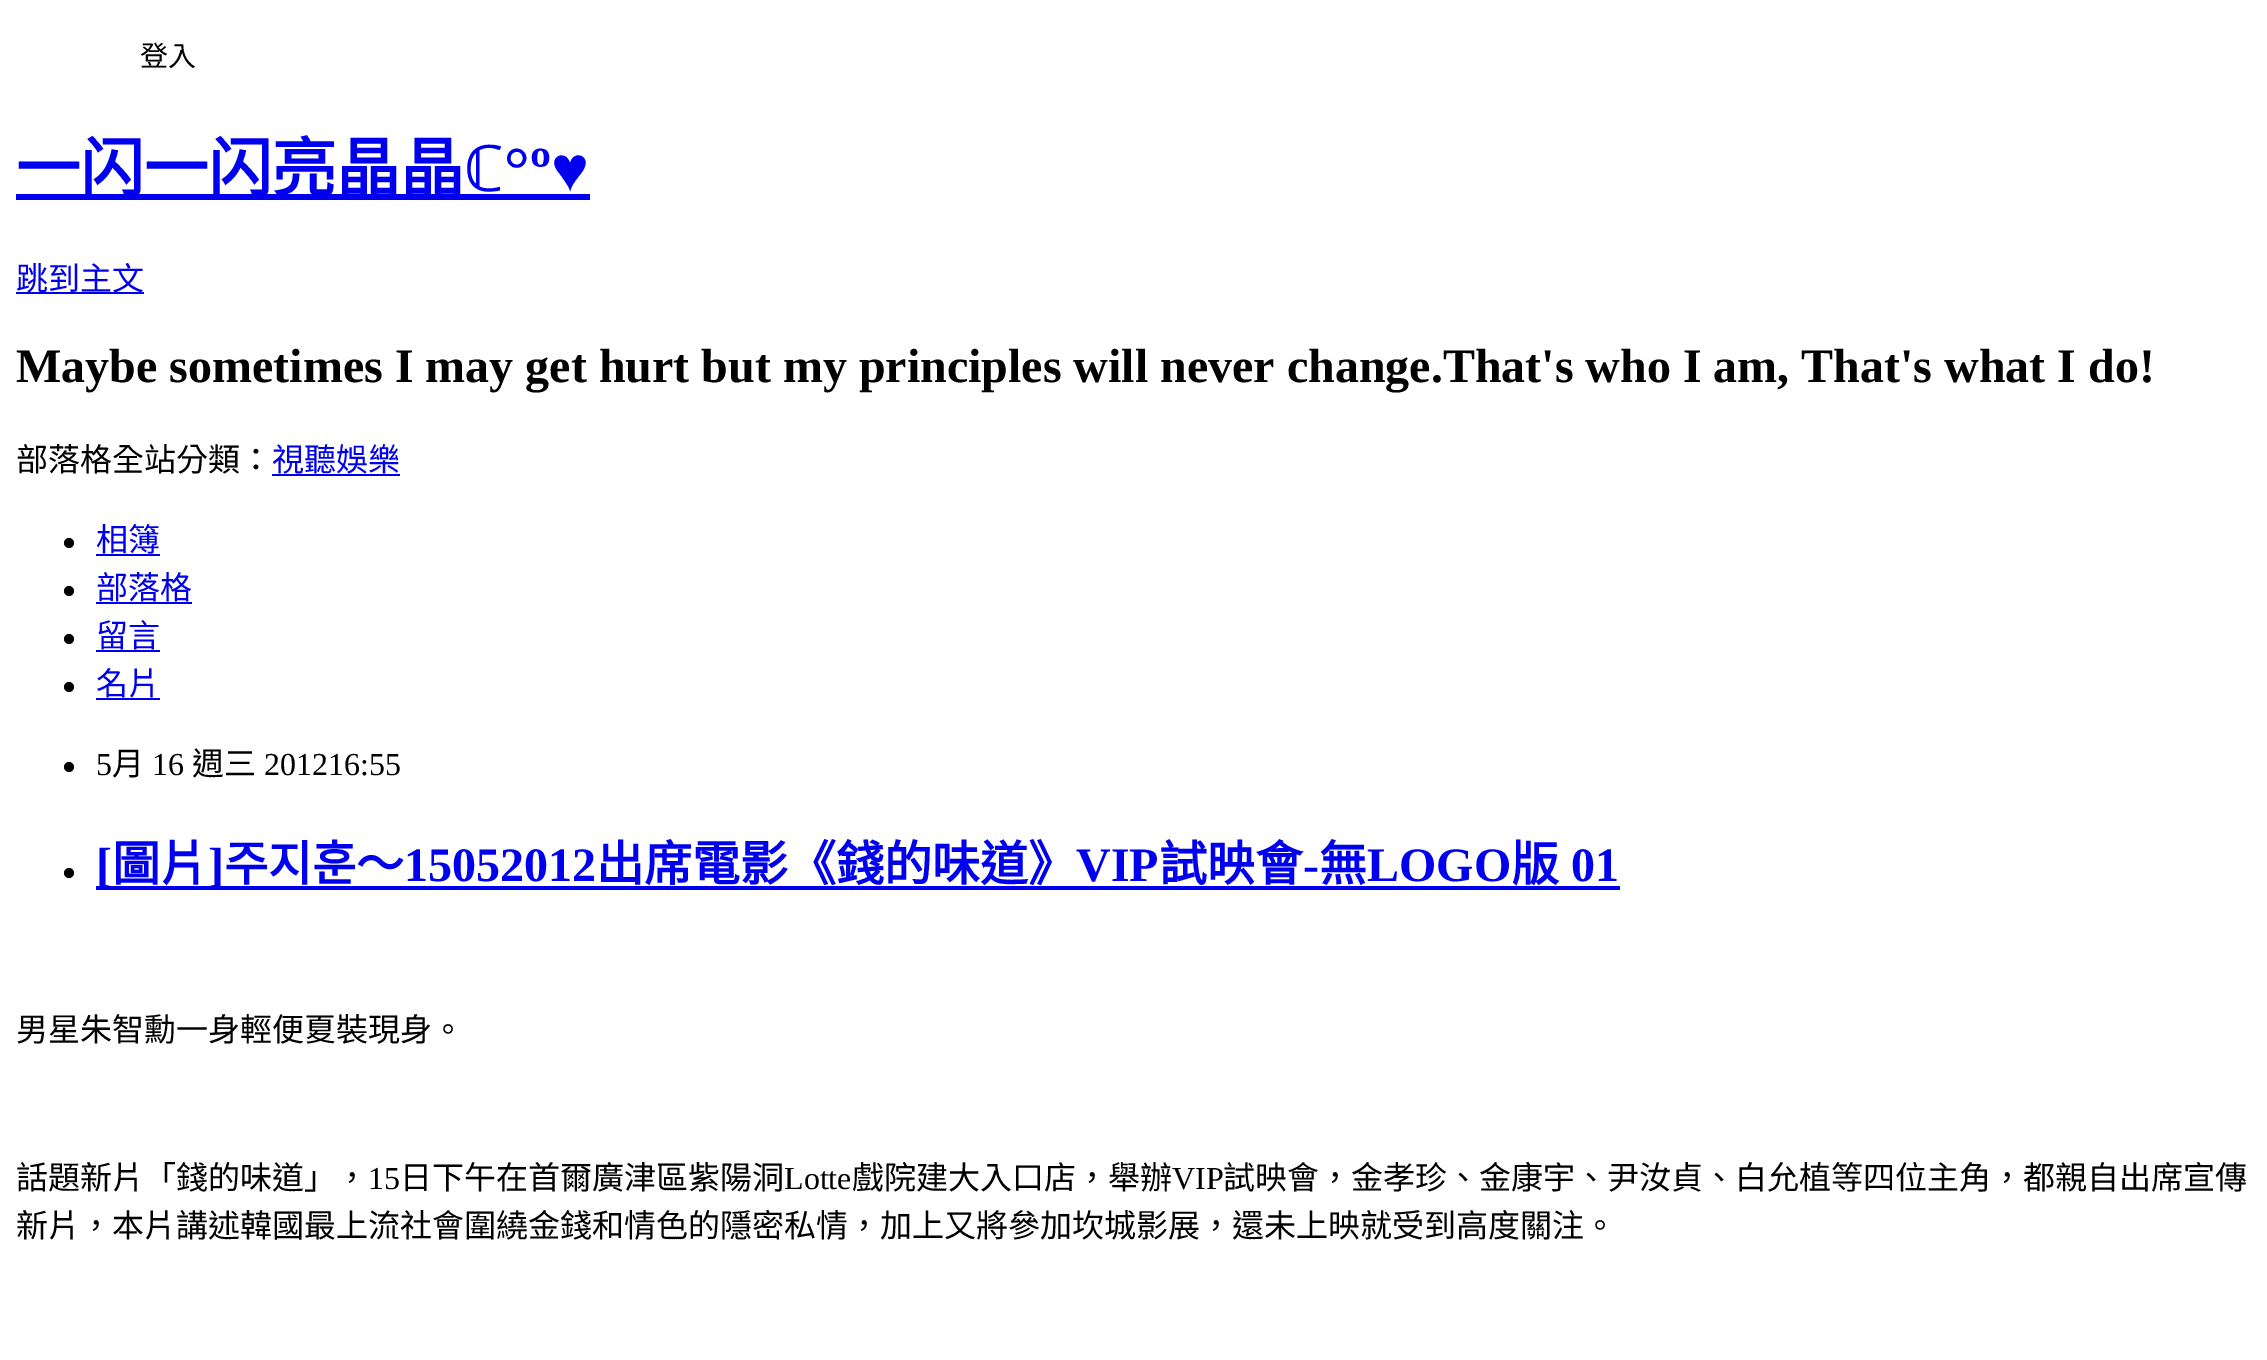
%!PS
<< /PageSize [2267 1360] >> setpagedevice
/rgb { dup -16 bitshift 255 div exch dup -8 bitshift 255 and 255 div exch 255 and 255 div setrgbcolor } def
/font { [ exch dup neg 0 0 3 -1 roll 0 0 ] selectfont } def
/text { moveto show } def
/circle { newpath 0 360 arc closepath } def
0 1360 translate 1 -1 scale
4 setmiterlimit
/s1 { /NotoSansCJKTC-Regular 28 font 16#000000 rgb } def
/s2 { /NotoSansCJKTC-Bold 64 font 16#0000EE rgb } def
/s3 { /NotoSans-Bold 64 font 16#0000EE rgb } def
/s4 { /LiberationSerif-Bold 64 font 16#0000EE rgb } def
/s5 { /NotoSansCJKTC-Regular 32 font 16#0000EE rgb } def
/s6 { /LiberationSerif-Bold 48 font 16#000000 rgb } def
/s7 { /NotoSansCJKTC-Regular 32 font 16#000000 rgb } def
/s8 { /LiberationSerif-Regular 32 font 16#000000 rgb } def
/s9 { /LiberationSerif-Bold 48 font 16#0000EE rgb } def
/s10 { /NotoSansCJKTC-Bold 48 font 16#0000EE rgb } def
16#FFFFFF rgb
0 0 2267 1360 rectfill
s1
(登入) 140 66 text
16#0000EE rgb
16 194 574 6 rectfill
s2
(一闪一闪亮晶晶) 16 191 text
s3
(ℂ) 464 191 text
s4
(°º♥) 504 191 text
16 292 128 2 rectfill
s5
(跳到主文) 16 290 text
s6
(Maybe sometimes I may get hurt but my principles will never change.That's who I am, That's what I do!) 16 382 text
s7
(部落格全站分類：) 16 471 text
s5
(視聽娛樂) 272 471 text
272 474 128 2 rectfill
16#000000 rgb
69 543 5 circle fill
s5
(相簿) 96 551 text
96 554 64 2 rectfill
16#000000 rgb
69 591 5 circle fill
s5
(部落格) 96 599 text
96 602 96 2 rectfill
16#000000 rgb
69 639 5 circle fill
s5
(留言) 96 647 text
96 650 64 2 rectfill
16#000000 rgb
69 687 5 circle fill
s5
(名片) 96 695 text
96 698 64 2 rectfill
16#000000 rgb
69 767 5 circle fill
s8
(5) 96 775 text
s7
(月) 112 775 text
s8
(16) 152 775 text
s7
(週三) 192 775 text
s8
(201216:55) 264 775 text
69 873 5 circle fill
16#0000EE rgb
96 886 1524 4 rectfill
s9
([) 96 881 text
s10
(圖片) 112 881 text
s9
(]) 208 881 text
s10
(주지훈～) 224 881 text
s9
(15052012) 404 881 text
s10
(出席電影《錢的味道》) 596 881 text
s9
(VIP) 1076 881 text
s10
(試映會) 1159 881 text
s9
(-) 1303 881 text
s10
(無) 1319 881 text
s9
(LOGO) 1367 881 text
s10
(版) 1511 881 text
s9
(01) 1571 881 text
s7
(男星朱智勳一身輕便夏裝現身。) 16 1041 text
(話題新片「錢的味道」，) 16 1189 text
s8
(15) 368 1189 text
s7
(日下午在首爾廣津區紫陽洞) 400 1189 text
s8
(Lotte) 784 1189 text
s7
(戲院建大入口店，舉辦) 852 1189 text
s8
(VIP) 1172 1189 text
s7
(試映會，金孝珍、金康宇、尹汝貞、白允植等四位主角，都親自出席宣傳) 1223 1189 text
(新片，本片講述韓國最上流社會圍繞金錢和情色的隱密私情，加上又將參加坎城影展，還未上映就受到高度關注。) 16 1237 text
showpage
